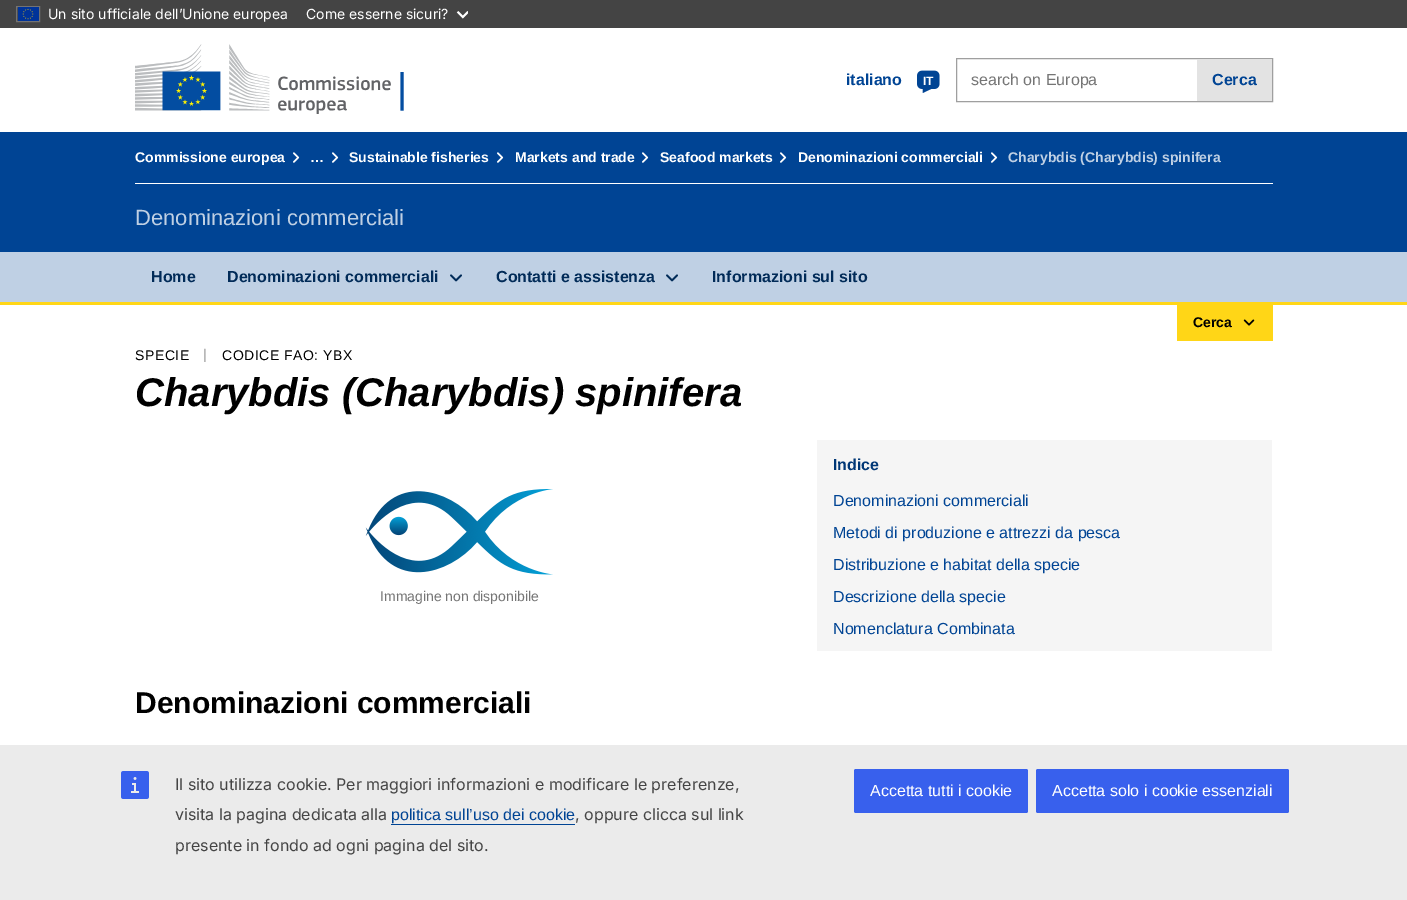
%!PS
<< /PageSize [1407 900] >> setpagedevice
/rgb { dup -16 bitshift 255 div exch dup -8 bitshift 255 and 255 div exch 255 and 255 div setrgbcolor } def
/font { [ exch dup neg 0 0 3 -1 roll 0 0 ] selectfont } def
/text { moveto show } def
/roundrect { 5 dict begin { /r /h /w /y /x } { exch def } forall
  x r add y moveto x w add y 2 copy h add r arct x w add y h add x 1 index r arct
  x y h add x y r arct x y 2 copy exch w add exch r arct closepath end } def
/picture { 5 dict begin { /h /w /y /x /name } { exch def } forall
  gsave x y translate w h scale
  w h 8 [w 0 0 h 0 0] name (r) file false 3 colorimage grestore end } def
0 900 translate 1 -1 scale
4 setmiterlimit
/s1 { /Inter-Regular 14 font 16#FFFFFF rgb } def
/s2 { /LiberationSans-Bold 16 font 16#004494 rgb } def
/s3 { /LiberationSans-Bold 12 font 16#FFFFFF rgb } def
/s4 { /LiberationSans-Regular 16 font 16#757575 rgb } def
/s5 { /LiberationSans-Bold 14 font 16#FFFFFF rgb } def
/s6 { /LiberationSans-Bold 14 font 16#BFD0E4 rgb } def
/s7 { /LiberationSans-Regular 22 font 16#BFD0E4 rgb } def
/s8 { /LiberationSans-Bold 16 font 16#012B58 rgb } def
/s9 { /LiberationSans-Bold 14 font 16#000000 rgb } def
/s10 { /LiberationSans-BoldItalic 40 font 16#000000 rgb } def
/s11 { /LiberationSans-Regular 14 font 16#757575 rgb } def
/s12 { /LiberationSans-Bold 16 font 16#003776 rgb } def
/s13 { /LiberationSans-Regular 16 font 16#004494 rgb } def
/s14 { /LiberationSans-Bold 30 font 16#000000 rgb } def
/s15 { /Inter-Regular 16 font 16#444444 rgb } def
/s16 { /LiberationSans-Regular 16 font 16#FFFFFF rgb } def
16#FFFFFF rgb
0 0 1407 900 rectfill
16#444444 rgb
0 0 1407 28 rectfill
16#737373 rgb
16.5 6.5 23 15 rectstroke
(pic1.raw) 18 7 21 14 picture
s1
(Un sito ufficiale dell’Unione europea) 48 19 text
(Come esserne sicuri?) 306 19 text
(pic2.raw) 456 11 12 8 picture
(pic3.raw) 135 44 269 70 picture
s2
(italiano) 846 85 text
(pic4.raw) 917 70 23 23 picture
s3
(IT) 923 85 text
16#9F9F9F rgb
956.5 58.5 316 43 rectstroke
s4
(search on Europa) 971 85 text
16#E3E3E3 rgb
1197 59 75 42 rectfill
s2
(Cerca) 1212 85 text
0 132 1407 120 rectfill
16#FFFFFF rgb
135 183 1138 1 rectfill
s5
(Commissione europea) 135 162 text
(pic5.raw) 293 152 7 11 picture
(…) 310 162 text
(pic5.raw) 332 152 7 11 picture
(Sustainable fisheries) 349 162 text
(pic5.raw) 497 152 7 11 picture
(Markets and trade) 515 162 text
(pic5.raw) 642 152 7 11 picture
(Seafood markets) 660 162 text
(pic5.raw) 780 152 7 11 picture
(Denominazioni commerciali) 798 162 text
(pic5.raw) 991 152 7 11 picture
s6
(Charybdis \(Charybdis\) spinifera) 1008 162 text
s7
(Denominazioni commerciali) 135 225 text
0 252 1407 50 rectfill
s8
(Home) 151 282 text
(Denominazioni commerciali) 227 282 text
(pic6.raw) 450 274 12 8 picture
(Contatti e assistenza) 496 282 text
(pic6.raw) 666 274 12 8 picture
(Informazioni sul sito) 712 282 text
16#FFD617 rgb
0 302 1407 3 rectfill
1177 305 96 36 rectfill
s9
(Cerca) 1193 327 text
(pic7.raw) 1243 319 12 7 picture
/LiberationSans-Regular 14 font
135 360 moveto 0.5 0 (SPECIE) ashow
16#9F9F9F rgb
203 359 moveto 0.5 0 (|) ashow
16#000000 rgb
222 360 moveto 0.5 0 (CODICE FAO: YBX) ashow
s10
(Charybdis \(Charybdis\) spinifera) 135 406 text
(pic8.raw) 365 489 188 86 picture
s11
(Immagine non disponibile) 380 601 text
16#F5F5F5 rgb
817 440 455 211 rectfill
s12
(Indice) 833 470 text
s13
(Denominazioni commerciali) 833 506 text
(Metodi di produzione e attrezzi da pesca) 833 538 text
(Distribuzione e habitat della specie) 833 570 text
(Descrizione della specie) 833 602 text
(Nomenclatura Combinata) 833 634 text
s14
(Denominazioni commerciali) 135 713 text
16#EBEBEB rgb
0 745 1407 155 rectfill
(pic9.raw) 121 771 28 28 picture
s15
(Il sito utilizza cookie. Per maggiori informazioni e modificare le preferenze,) 175 790 text
(visita la pagina dedicata alla) 175 820 text
s13
(politica sull’uso dei cookie) 391 820 text
391 824 184 1 rectfill
s15
(, oppure clicca sul link) 575 820 text
(presente in fondo ad ogni pagina del sito.) 175 851 text
16#3860ED rgb
854 769 174 44 2 roundrect fill
s16
(Accetta tutti i cookie) 870 796 text
16#3860ED rgb
1036 769 253 44 2 roundrect fill
s16
(Accetta solo i cookie essenziali) 1052 796 text
showpage
